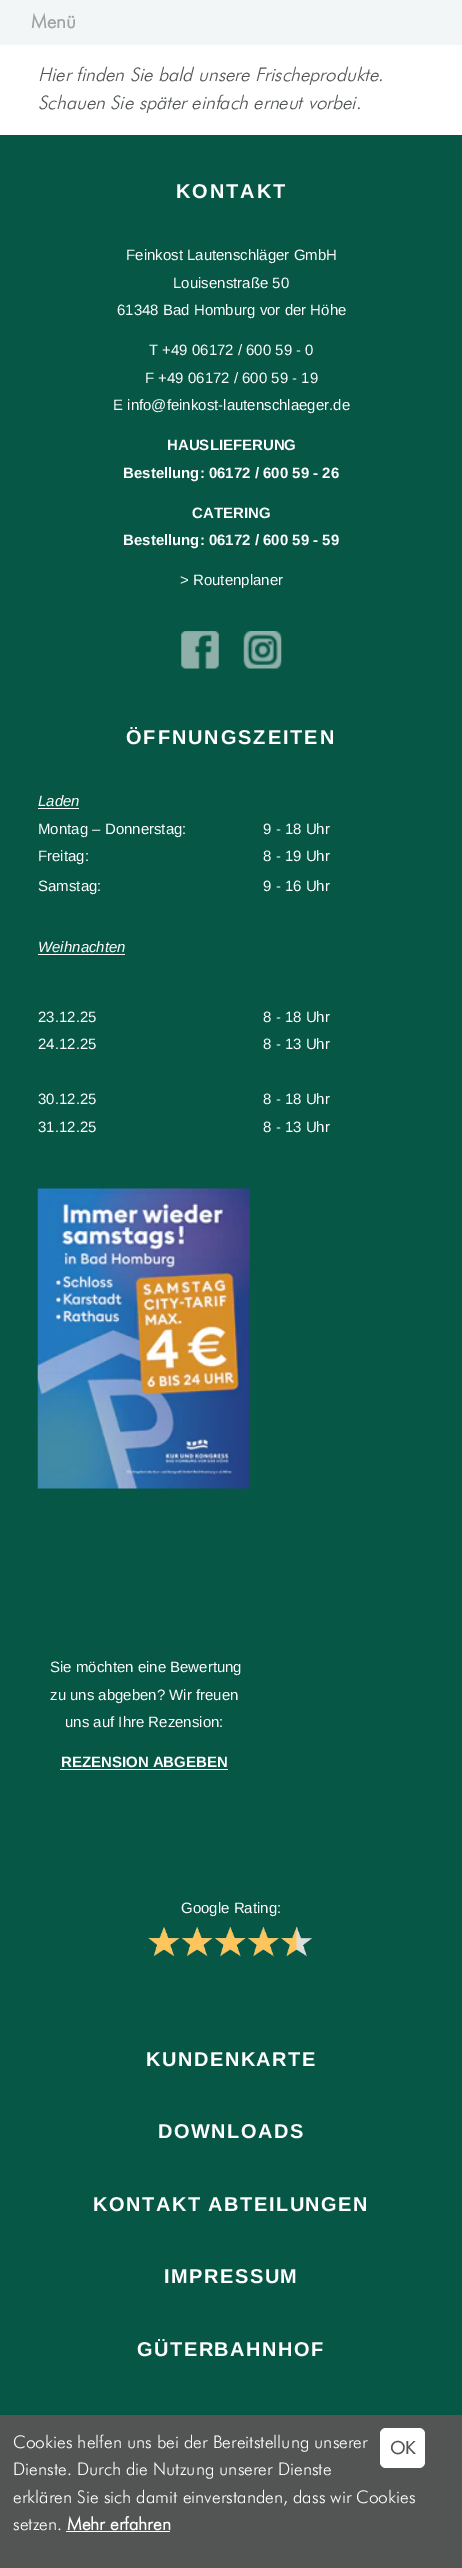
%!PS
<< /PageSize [462 2568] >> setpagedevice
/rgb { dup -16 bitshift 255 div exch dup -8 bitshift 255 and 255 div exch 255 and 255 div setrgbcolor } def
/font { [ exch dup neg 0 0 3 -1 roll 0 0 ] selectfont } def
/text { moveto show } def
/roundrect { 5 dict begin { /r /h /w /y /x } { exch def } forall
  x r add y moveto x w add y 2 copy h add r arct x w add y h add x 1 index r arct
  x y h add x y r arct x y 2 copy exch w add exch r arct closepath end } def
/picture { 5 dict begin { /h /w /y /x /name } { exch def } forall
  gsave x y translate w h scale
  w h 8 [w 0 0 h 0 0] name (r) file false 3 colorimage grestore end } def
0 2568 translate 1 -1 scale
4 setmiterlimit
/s1 { /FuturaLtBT-Bold 18.75 font 16#A1A2A2 rgb } def
/s2 { /FuturaLtBT-LightItalic 18.75 font 16#525555 rgb } def
/s3 { /LiberationSans-Regular 15 font 16#FFFFFF rgb } def
/s4 { /LiberationSans-Bold 15 font 16#FFFFFF rgb } def
/s5 { /LiberationSans-Italic 15 font 16#FFFFFF rgb } def
/s6 { /FuturaLtBT-Light 17.5 font 16#FFFFFF rgb } def
/s7 { /FuturaLtBT-Bold 17.5 font 16#FFFFFF rgb } def
/s8 { /FuturaLtBT-Bold 17.5 font 16#525555 rgb } def
16#FFFFFF rgb
0 0 462 2568 rectfill
16#F3F6F6 rgb
0 0 462 45 rectfill
s1
(Menü) 31 28 text
s2
(Hier finden Sie bald unsere Frischeprodukte.) 38 81 text
(Schauen Sie später einfach erneut vorbei.) 38 109 text
16#075746 rgb
0 135 462 2280 rectfill
/LiberationSans-Bold 20 font
16#FFFFFF rgb
176 198 moveto 1.9 0 (KONTAKT) ashow
s3
(Feinkost Lautenschläger GmbH) 126 260 text
(Louisenstraße 50) 173 288 text
(61348 Bad Homburg vor der Höhe) 117 315 text
(T +49 06172 / 600 59 - 0) 149 355 text
(F +49 06172 / 600 59 - 19) 145 383 text
(E info@feinkost-lautenschlaeger.de) 113 410 text
s4
(HAUSLIEFERUNG) 167 450 text
(Bestellung: 06172 / 600 59 - 26) 123 478 text
(CATERING) 192 518 text
(Bestellung: 06172 / 600 59 - 59) 123 545 text
s3
(> Routenplaner) 180 585 text
(pic1.raw) 181 631 38 38 picture
(pic2.raw) 243 631 39 38 picture
/LiberationSans-Bold 20 font
126 744 moveto 1.9 0 (ÖFFNUNGSZEITEN) ashow
s5
(Laden) 38 806 text
38 808 41 1 rectfill
s3
(Montag – Donnerstag:) 38 834 text
(9 - 18 Uhr) 263 834 text
(Freitag:) 38 861 text
(8 - 19 Uhr) 263 861 text
(Samstag:) 38 891 text
(9 - 16 Uhr) 263 891 text
s5
(Weihnachten) 38 952 text
38 954 87 1 rectfill
s3
(23.12.25) 38 1022 text
(24.12.25) 38 1049 text
(30.12.25) 38 1104 text
(31.12.25) 38 1132 text
(8 - 18 Uhr) 263 1022 text
(8 - 13 Uhr) 263 1049 text
(8 - 18 Uhr) 263 1104 text
(8 - 13 Uhr) 263 1132 text
(pic3.raw) 37 1188 213 301 picture
(Sie möchten eine Bewertung) 50 1672 text
(zu uns abgeben? Wir freuen) 50 1700 text
(uns auf Ihre Rezension:) 65 1727 text
s4
(REZENSION ABGEBEN) 61 1767 text
60 1769 168 1 rectfill
s3
(Google Rating:) 181 1913 text
(pic4.raw) 148 1926 164 31 picture
/LiberationSans-Bold 20 font
146 2066 moveto 1.5 0 (KUNDENKARTE) ashow
158 2138 moveto 1.5 0 (DOWNLOADS) ashow
93 2211 moveto 1.5 0 (KONTAKT ABTEILUNGEN) ashow
164 2283 moveto 1.5 0 (IMPRESSUM) ashow
137 2356 moveto 1.5 0 (GÜTERBAHNHOF) ashow
16#535555 rgb
0 2415 462 153 rectfill
s6
(Cookies helfen uns bei der Bereitstellung unserer) 13 2448 text
(Dienste. Durch die Nutzung unserer Dienste) 13 2475 text
(erklären Sie sich damit einverstanden, dass wir Cookies) 13 2503 text
(setzen.) 13 2530 text
s7
(Mehr erfahren) 67 2530 text
66 2531 104 1 rectfill
380 2428 45 40 6 roundrect fill
s8
(OK) 390 2454 text
showpage
